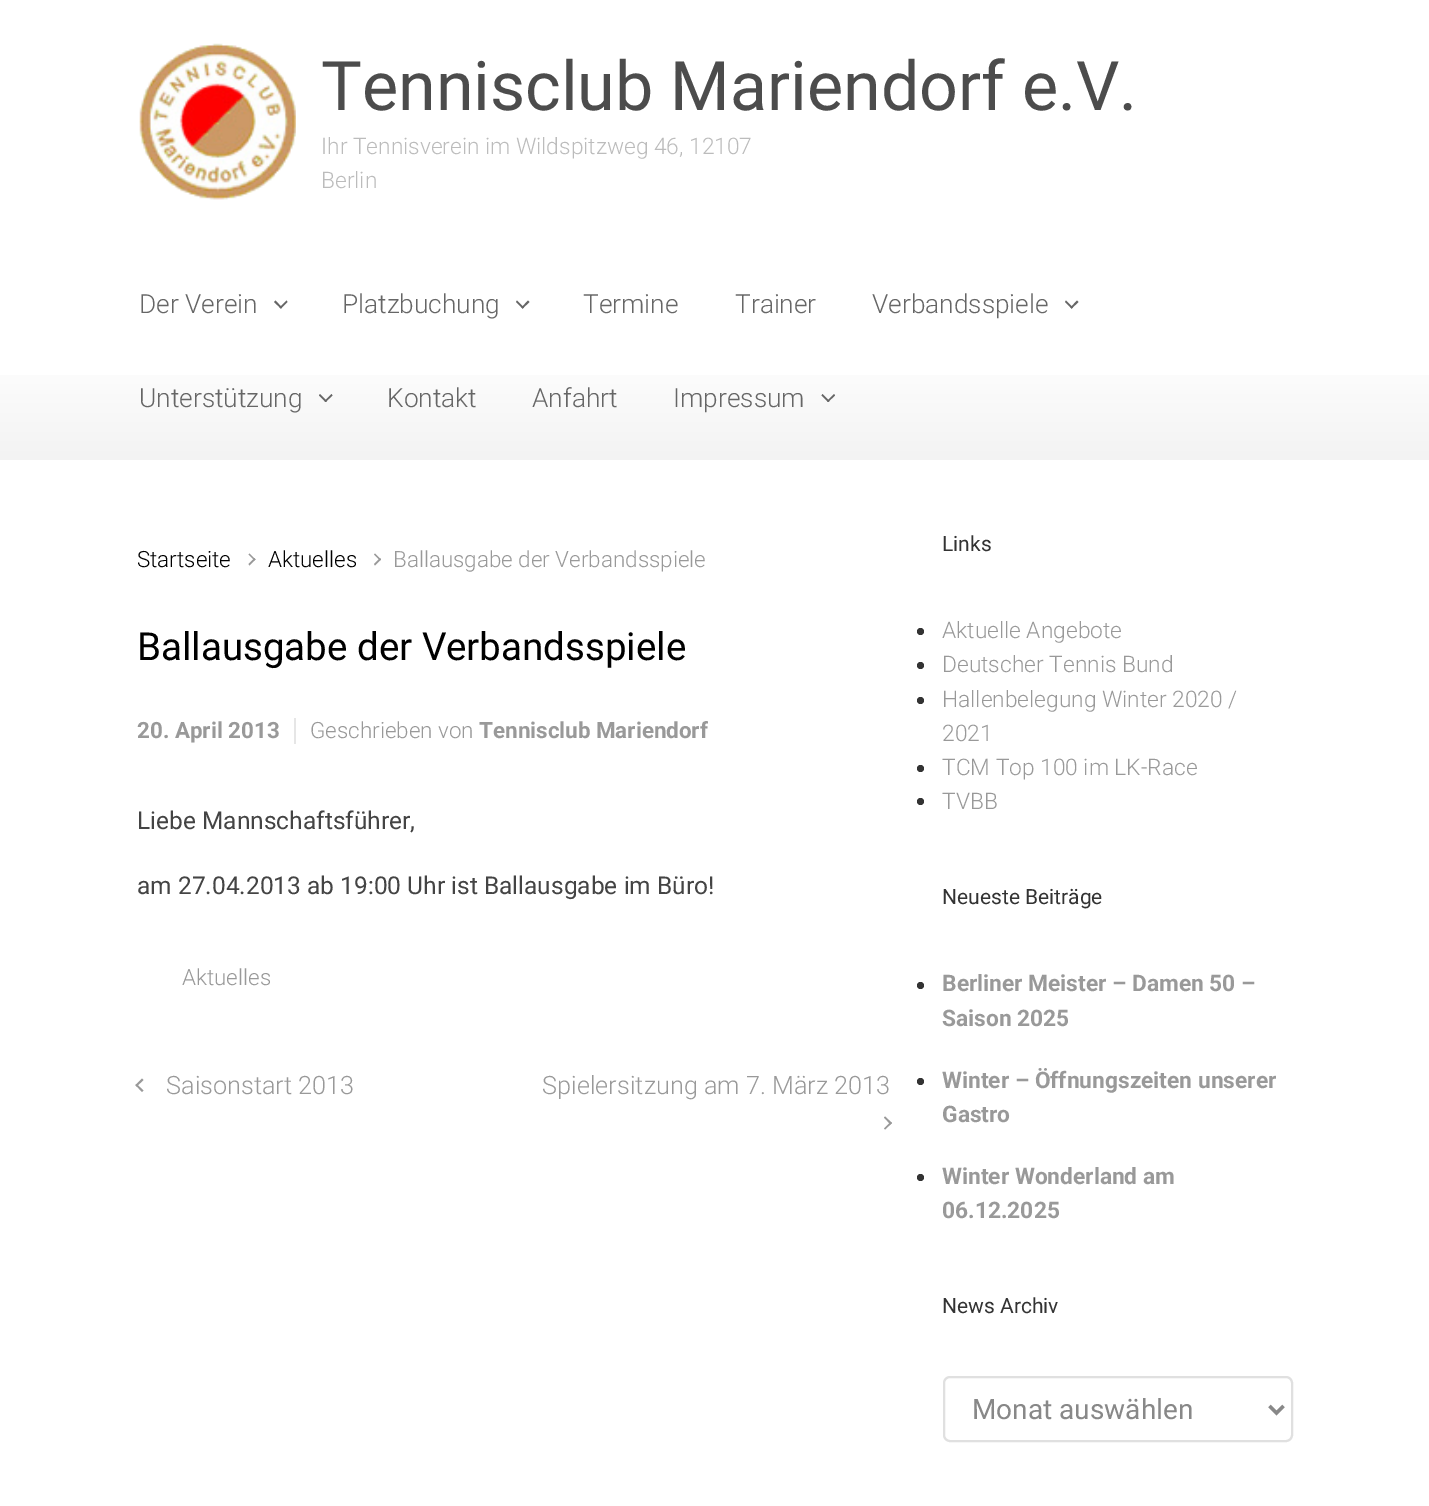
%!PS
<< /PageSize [1429 1506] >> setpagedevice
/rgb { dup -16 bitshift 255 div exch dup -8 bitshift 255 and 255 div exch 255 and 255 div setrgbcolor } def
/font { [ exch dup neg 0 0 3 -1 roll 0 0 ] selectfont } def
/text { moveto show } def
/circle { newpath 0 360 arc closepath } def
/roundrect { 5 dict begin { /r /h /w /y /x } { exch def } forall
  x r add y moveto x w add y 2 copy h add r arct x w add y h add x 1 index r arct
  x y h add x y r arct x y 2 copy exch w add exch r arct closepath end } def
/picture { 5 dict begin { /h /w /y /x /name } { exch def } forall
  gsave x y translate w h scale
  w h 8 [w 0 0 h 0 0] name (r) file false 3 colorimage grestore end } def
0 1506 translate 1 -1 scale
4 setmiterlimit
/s1 { /Roboto-Regular 68.25 font 16#4C4C4C rgb } def
/s2 { /Roboto-Light 22.75 font 16#BCBCBC rgb } def
/s3 { /Roboto-Light 26.25 font 16#666666 rgb } def
/s4 { /Roboto-Light 22.4 font 16#000000 rgb } def
/s5 { /Roboto-Light 22.4 font 16#999999 rgb } def
/s6 { /Roboto-Regular 38.5 font 16#000000 rgb } def
/s7 { /Roboto-Bold 22.4 font 16#999999 rgb } def
/s8 { /Roboto-Regular 24.5 font 16#444444 rgb } def
/s9 { /Roboto-Light 25.25 font 16#999999 rgb } def
/s10 { /Roboto-Regular 21 font 16#333333 rgb } def
/s11 { /Roboto-Light 22.75 font 16#999999 rgb } def
/s12 { /Roboto-Bold 22.75 font 16#999999 rgb } def
/s13 { /Roboto-Regular 28 font 16#888888 rgb } def
16#FFFFFF rgb
0 0 1429 1506 rectfill
(pic1.raw) 139 43 157 157 picture
s1
(Tennisclub Mariendorf e.V.) 321 110 text
s2
(Ihr Tennisverein im Wildspitzweg 46, 12107) 321 154 text
(Berlin) 321 188 text
gsave 0 375 moveto 1429 375 lineto 1429 460 lineto 0 460 lineto closepath clip newpath
<< /ShadingType 2 /ColorSpace /DeviceRGB /Coords [715 245 715 460] /Extend [true true] /Function << /FunctionType 3 /Domain [0 1] /Functions [<< /FunctionType 2 /Domain [0 1] /C0 [1 1 1] /C1 [1 1 1] /N 1 >> << /FunctionType 2 /Domain [0 1] /C0 [1 1 1] /C1 [0.953 0.953 0.953] /N 1 >>] /Bounds [0.5] /Encode [0 1 0 1] >> >> shfill grestore
s3
(Der Verein) 139 313 text
286.5 300.5 moveto 287.5 302 lineto 281 308.5 lineto 279.5 307.5 lineto closepath fill
275.5 300.5 moveto 282 307.5 lineto 281 308.5 lineto 274 302 lineto closepath fill
(Platzbuchung) 342 313 text
528 300.5 moveto 529.5 302 lineto 522.5 308.5 lineto 521.5 307.5 lineto closepath fill
517 300.5 moveto 524 307.5 lineto 522.5 308.5 lineto 516 302 lineto closepath fill
(Termine) 583 313 text
(Trainer) 735 313 text
(Verbandsspiele) 872 313 text
1077 300.5 moveto 1078.5 302 lineto 1071.5 308.5 lineto 1070.5 307.5 lineto closepath fill
1066 300.5 moveto 1073 307.5 lineto 1071.5 308.5 lineto 1065 302 lineto closepath fill
(Unterstützung) 139 407 text
331.5 394 moveto 332.5 395.5 lineto 325.5 402 lineto 324.5 401 lineto closepath fill
320 394 moveto 327 401 lineto 325.5 402 lineto 319 395.5 lineto closepath fill
(Kontakt) 387 407 text
(Anfahrt) 532 407 text
(Impressum) 673 407 text
834 394 moveto 835 395.5 lineto 828 402 lineto 827 401 lineto closepath fill
822.5 394 moveto 829.5 401 lineto 828 402 lineto 821.5 395.5 lineto closepath fill
s4
(Startseite) 137 567 text
16#999999 rgb
248.5 554.5 moveto 249.5 553.5 lineto 255.5 559.5 lineto 254.5 560.5 lineto closepath fill
248.5 564 moveto 254.5 558 lineto 255.5 559.5 lineto 249.5 565.5 lineto closepath fill
s4
(Aktuelles) 268 567 text
16#999999 rgb
374 554.5 moveto 375 553.5 lineto 381 559.5 lineto 380 560.5 lineto closepath fill
374 564 moveto 380 558 lineto 381 559.5 lineto 375 565.5 lineto closepath fill
(Ballausgabe der Verbandsspiele) 393 567 text
s6
(Ballausgabe der Verbandsspiele) 137 660 text
s7
(20. April 2013) 137 738 text
16#E6E6E6 rgb
294 718 2 26 rectfill
s5
(Geschrieben von) 310 738 text
s7
(Tennisclub Mariendorf) 479 738 text
s8
(Liebe Mannschaftsführer,) 137 829 text
(am 27.04.2013 ab 19:00 Uhr ist Ballausgabe im Büro!) 137 894 text
s5
(Aktuelles) 182 985 text
143.5 1090.5 moveto 142 1092 lineto 135.5 1085 lineto 136.5 1084 lineto closepath fill
143.5 1080 moveto 136.5 1086.5 lineto 135.5 1085 lineto 142 1078.5 lineto closepath fill
s9
(Saisonstart 2013) 166 1094 text
(Spielersitzung am 7. März 2013) 542 1094 text
884 1117.5 moveto 885 1116.5 lineto 892 1123 lineto 890.5 1124.5 lineto closepath fill
884 1128.5 moveto 890.5 1122 lineto 892 1123 lineto 885 1129.5 lineto closepath fill
s10
(Links) 942 551 text
920.5 631.5 3.5 circle fill
s11
(Aktuelle Angebote) 942 638 text
16#333333 rgb
920.5 665.5 3.5 circle fill
s11
(Deutscher Tennis Bund) 942 672 text
16#333333 rgb
920.5 700.5 3.5 circle fill
s11
(Hallenbelegung Winter 2020 /) 942 707 text
(2021) 942 741 text
16#333333 rgb
920.5 768.5 3.5 circle fill
s11
(TCM Top 100 im LK-Race) 942 775 text
16#333333 rgb
920.5 801.5 3.5 circle fill
s11
(TVBB) 942 809 text
s10
(Neueste Beiträge) 942 904 text
920.5 985.5 3.5 circle fill
s12
(Berliner Meister – Damen 50 –) 942 991 text
(Saison 2025) 942 1026 text
16#333333 rgb
920.5 1081.5 3.5 circle fill
s12
(Winter – Öffnungszeiten unserer) 942 1088 text
(Gastro) 942 1122 text
16#333333 rgb
920.5 1177.5 3.5 circle fill
s12
(Winter Wonderland am) 942 1184 text
(06.12.2025) 942 1218 text
s10
(News Archiv) 942 1313 text
16#E0E0E0 rgb
2 setlinewidth
944 1377 348 64 6 roundrect stroke
16#888888 rgb
3.5 setlinewidth
1269.5 1406 moveto 1276.5 1413 lineto 1283.5 1406 lineto stroke
s13
(Monat auswählen) 972 1419 text
showpage
